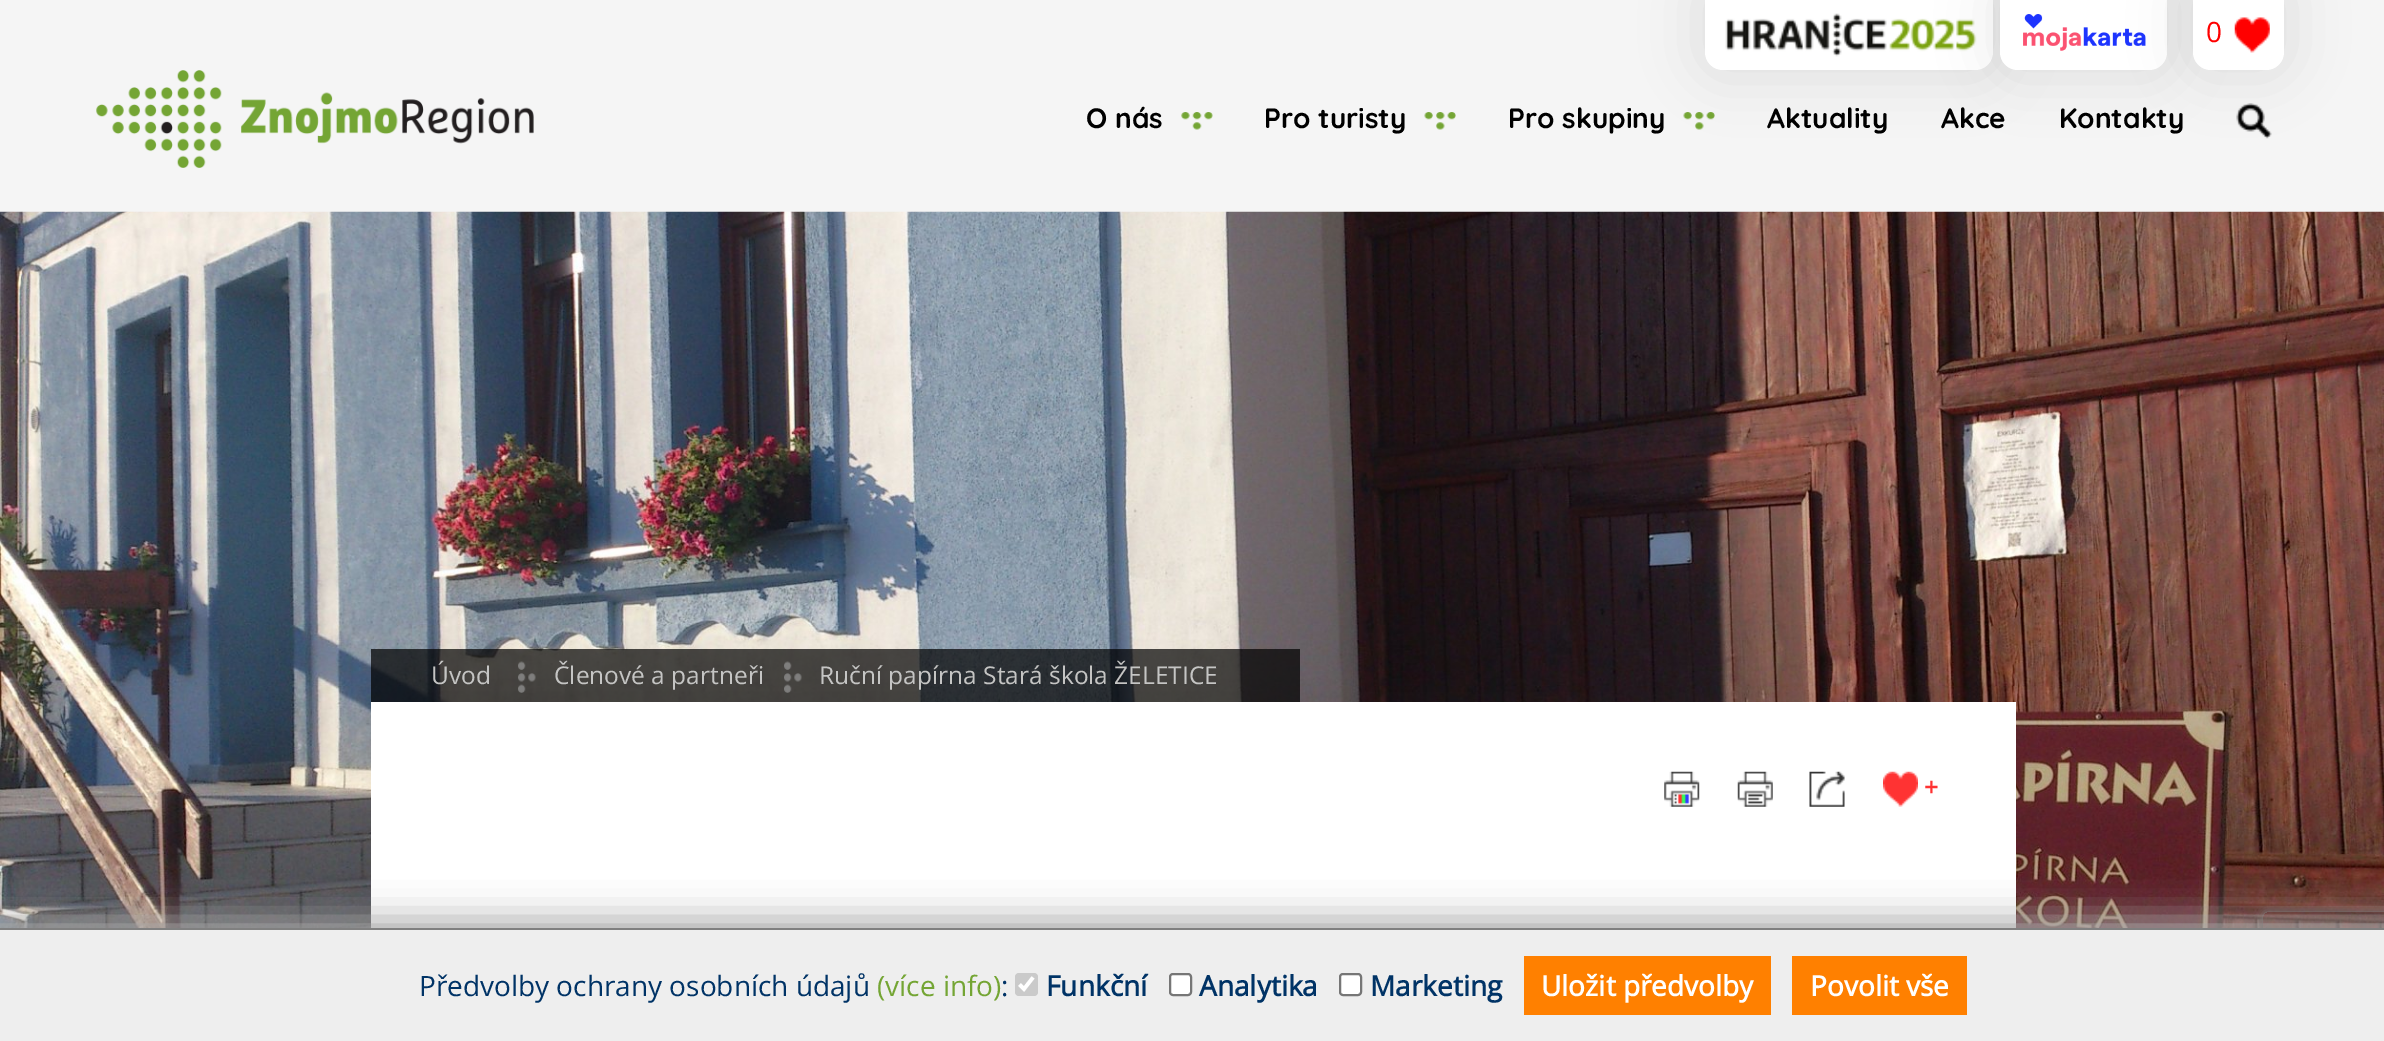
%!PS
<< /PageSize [2384 1041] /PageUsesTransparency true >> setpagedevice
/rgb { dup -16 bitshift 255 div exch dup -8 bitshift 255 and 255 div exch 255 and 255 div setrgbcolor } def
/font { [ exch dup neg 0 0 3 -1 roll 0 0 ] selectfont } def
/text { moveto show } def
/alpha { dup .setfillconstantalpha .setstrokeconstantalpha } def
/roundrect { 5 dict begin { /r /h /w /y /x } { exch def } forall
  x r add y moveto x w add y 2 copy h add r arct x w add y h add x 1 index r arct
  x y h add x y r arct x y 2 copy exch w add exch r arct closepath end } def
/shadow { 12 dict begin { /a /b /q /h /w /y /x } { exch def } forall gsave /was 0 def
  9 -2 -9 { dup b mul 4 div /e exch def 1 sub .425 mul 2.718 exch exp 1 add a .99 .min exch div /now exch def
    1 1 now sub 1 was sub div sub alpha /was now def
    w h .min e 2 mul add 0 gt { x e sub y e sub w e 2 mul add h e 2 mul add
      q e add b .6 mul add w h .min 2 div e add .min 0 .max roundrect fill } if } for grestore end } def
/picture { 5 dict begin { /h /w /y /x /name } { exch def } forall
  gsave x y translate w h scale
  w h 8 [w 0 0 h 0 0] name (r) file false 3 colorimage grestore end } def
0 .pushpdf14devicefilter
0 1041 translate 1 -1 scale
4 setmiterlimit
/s1 { /OpenSans-Regular 28 font 16#FF0000 rgb } def
/s2 { /Quicksand-Bold 28 font 16#000000 rgb } def
/s3 { /OpenSans-Regular 24.5 font 16#C5C5C4 rgb } def
/s4 { /OpenSans-Bold 24.5 font 16#FF3333 rgb } def
/s5 { /OpenSans-Regular 28 font 16#003366 rgb } def
/s6 { /OpenSans-Regular 28 font 16#74A534 rgb } def
/s7 { /OpenSans-Bold 28 font 16#003366 rgb } def
/s8 { /OpenSans-Bold 28 font 16#FFFFFF rgb } def
16#F5F5F5 rgb
0 0 2384 1041 rectfill
(pic6.raw) 1683 112 32 18 picture
16#323232 rgb
1696 -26 306 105 26 26 0.1 shadow
16#FFFFFF rgb
1705 -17 moveto 1993 -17 lineto 1993 52 lineto 1993 62 1985 70 1975 70 curveto 1723 70 lineto 1713 70 1705 62 1705 52 curveto closepath fill
(pic1.raw) 1725 13 252 44 picture
(pic7.raw) 2236 103 36 36 picture
16#323232 rgb
1992 -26 183 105 26 26 0.1 shadow
16#FFFFFF rgb
2000 -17 moveto 2167 -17 lineto 2167 52 lineto 2167 62 2159 70 2149 70 curveto 2018 70 lineto 2008 70 2000 62 2000 52 curveto closepath fill
(pic2.raw) 2023 14 123 37 picture
16#323232 rgb
2184 -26 109 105 26 26 0.1 shadow
16#FFFFFF rgb
2193 -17 moveto 2284 -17 lineto 2284 52 lineto 2284 62 2276 70 2266 70 curveto 2211 70 lineto 2201 70 2193 62 2193 52 curveto closepath fill
(pic3.raw) 2234 17 36 36 picture
s1
(0) 2206 42 text
(pic4.raw) 96 70 438 98 picture
s2
(O nás) 1086 128 text
(pic5.raw) 1181 112 32 18 picture
(Pro turisty) 1264 128 text
(pic6.raw) 1424 112 32 18 picture
(Pro skupiny) 1508 128 text
(Aktuality) 1767 128 text
(Akce) 1941 128 text
(Kontakty) 2059 128 text
(pic8.raw) 0 211 2384 717 picture
16#323232 rgb
368 698 1652 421 0 26 0.1 shadow
0.7 alpha
16#000000 rgb
371 649 929 53 rectfill
1 alpha
s3
(Úvod) 431 684 text
(pic9.raw) 518 661 18 32 picture
(Členové a partneři) 554 684 text
(pic10.raw) 784 661 18 32 picture
(Ruční papírna Stará škola ŽELETICE) 819 684 text
16#FFFFFF rgb
371 702 1645 226 rectfill
(pic11.raw) 1664 771 36 36 picture
(pic12.raw) 1737 771 36 36 picture
(pic13.raw) 1809 771 36 36 picture
(pic14.raw) 1883 771 35 36 picture
s4
(+) 1924 796 text
16#AAAAAA rgb
-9 919 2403 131 0 17.5 1 shadow
gsave
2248 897 moveto 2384 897 lineto 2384 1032 lineto 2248 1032 lineto closepath 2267 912 moveto 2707 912 lineto 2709 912 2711 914 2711 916 curveto 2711 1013 lineto 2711 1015 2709 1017 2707 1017 curveto 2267 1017 lineto 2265 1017 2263 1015 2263 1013 curveto 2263 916 lineto 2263 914 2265 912 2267 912 curveto closepath eoclip newpath
16#808080 rgb
2263 912 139 105 4 4.5 1 shadow
grestore
16#EEEEEE rgb
0 930 2384 111 rectfill
16#808080 rgb
0 928 2384 2 rectfill
s5
(Předvolby ochrany osobních údajů) 419 996 text
s6
(\(více info\)) 877 996 text
s5
(:) 1001 996 text
16#CACACA rgb
1015 973 23 23 4 roundrect fill
16#FFFFFF rgb
3.6 setlinewidth
1019.5 984.5 moveto 1024 989 lineto 1033 977.5 lineto stroke
s7
(Funkční) 1046 996 text
16#FFFFFF rgb
1170 974 21 21 3 roundrect gsave fill grestore
16#767676 rgb
2 setlinewidth
stroke
s7
(Analytika) 1199 996 text
16#FFFFFF rgb
1340 974 21 21 3 roundrect gsave fill grestore
16#767676 rgb
stroke
s7
(Marketing) 1370 996 text
16#FF8000 rgb
1524 956 247 59 rectfill
s8
(Uložit předvolby) 1541 996 text
16#FF8000 rgb
1792 956 175 59 rectfill
s8
(Povolit vše) 1810 996 text
.poppdf14devicefilter showpage
